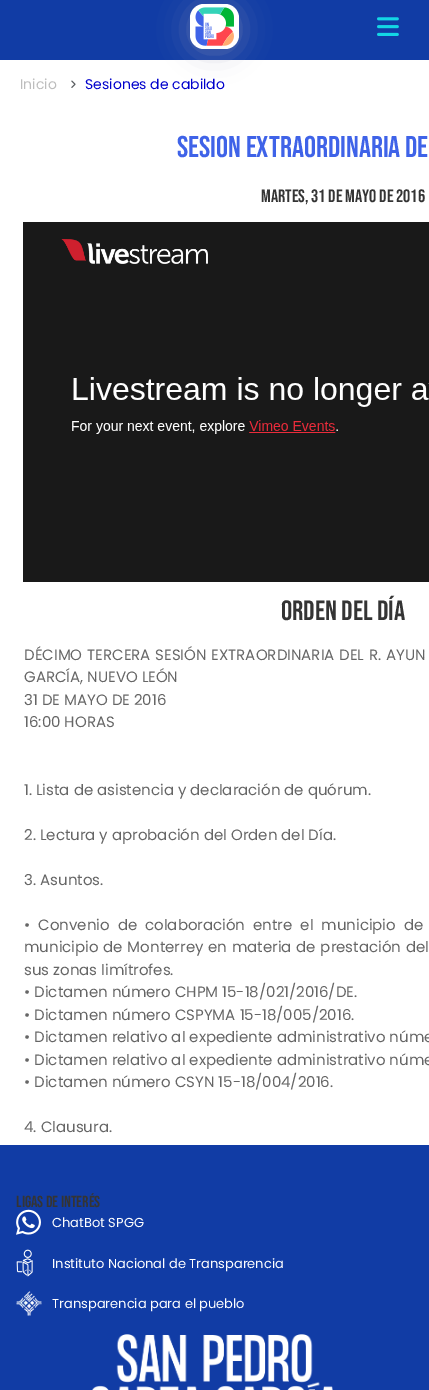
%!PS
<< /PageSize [429 1390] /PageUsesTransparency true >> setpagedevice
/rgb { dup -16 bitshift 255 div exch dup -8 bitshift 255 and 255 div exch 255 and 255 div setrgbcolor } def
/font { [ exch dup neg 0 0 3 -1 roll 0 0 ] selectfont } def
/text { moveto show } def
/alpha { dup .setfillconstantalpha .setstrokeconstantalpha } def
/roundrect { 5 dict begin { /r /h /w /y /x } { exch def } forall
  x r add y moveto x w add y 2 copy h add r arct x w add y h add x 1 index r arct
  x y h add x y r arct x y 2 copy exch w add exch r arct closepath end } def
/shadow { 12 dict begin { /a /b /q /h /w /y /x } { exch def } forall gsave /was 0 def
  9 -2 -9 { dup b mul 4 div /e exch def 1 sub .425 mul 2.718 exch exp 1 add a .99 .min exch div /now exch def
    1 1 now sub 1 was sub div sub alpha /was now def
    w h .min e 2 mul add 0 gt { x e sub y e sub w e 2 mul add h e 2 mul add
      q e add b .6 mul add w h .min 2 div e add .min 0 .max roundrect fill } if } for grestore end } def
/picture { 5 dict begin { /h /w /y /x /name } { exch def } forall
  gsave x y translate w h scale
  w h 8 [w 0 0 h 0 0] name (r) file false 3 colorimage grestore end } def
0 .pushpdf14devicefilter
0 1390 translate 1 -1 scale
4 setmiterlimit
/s1 { /Poppins-Regular 14 font 16#BDBDBD rgb } def
/s2 { /Poppins-Regular 14 font 16#0000CC rgb } def
/s3 { /BebasNeue-Regular 30 font 16#3F63E8 rgb } def
/s4 { /BebasNeue-Regular 18 font 16#343434 rgb } def
/s5 { /BebasNeue-Regular 28 font 16#343434 rgb } def
/s6 { /Poppins-Regular 15 font 16#666666 rgb } def
/s7 { /BebasNeue-Regular 16 font 16#343434 rgb } def
/s8 { /Poppins-Regular 13 font 16#FFFFFF rgb } def
16#FFFFFF rgb
0 0 429 1390 rectfill
16#113CA5 rgb
0 0 429 60 rectfill
16#A3A3B9 rgb
190 7 49 45 14 15 0.49 shadow
16#FFFFFF rgb
190 4 49 45 14 roundrect fill
(pic1.raw) 195 7 39 39 picture
(pic2.raw) 377 17 22 19 picture
s1
(Inicio) 20 89 text
(pic3.raw) 71 80 5 8 picture
s2
(Sesiones de cabildo) 85 89 text
s3
(Sesion Extraordinaria De) 177 157 text
s4
(martes, 31 de mayo de 2016) 261 202 text
(pic4.raw) 23 222 406 360 picture
s5
(Orden del Día) 281 620 text
/Poppins-Regular 15 font
16#666666 rgb
24 660 moveto 0.75 0 32 (DÉCIMO TERCERA SESIÓN EXTRAORDINARIA DEL R. AYUN) widthshow
(GARCÍA, NUEVO LEÓN) 24 682 text
(31 DE MAYO DE 2016) 24 705 text
(16:00 HORAS) 24 727 text
(1. Lista de asistencia y declaración de quórum.) 24 795 text
(2. Lectura y aprobación del Orden del Día.) 24 840 text
(3. Asuntos.) 24 885 text
24 930 moveto 4 0 32 (• Convenio de colaboración entre el municipio de) widthshow
24 952 moveto 0.75 0 32 (municipio de Monterrey en materia de prestación del) widthshow
(sus zonas limítrofes.) 24 975 text
(• Dictamen número CHPM 15-18/021/2016/DE.) 24 997 text
(• Dictamen número CSPYMA 15-18/005/2016.) 24 1020 text
(• Dictamen relativo al expediente administrativo núme) 24 1042 text
(• Dictamen relativo al expediente administrativo núme) 24 1065 text
(• Dictamen número CSYN 15-18/004/2016.) 24 1087 text
(4. Clausura.) 24 1132 text
16#113CA5 rgb
0 1145 429 245 rectfill
s7
(LIGAS DE INTERÉS) 16 1207 text
(pic5.raw) 16 1209 25 26 picture
s8
(ChatBot SPGG) 52 1227 text
(pic6.raw) 16 1249 17 28 picture
(Instituto Nacional de Transparencia) 52 1268 text
(pic7.raw) 16 1291 26 25 picture
(Transparencia para el pueblo) 52 1308 text
(pic8.raw) 92 1334 241 56 picture
.poppdf14devicefilter showpage
